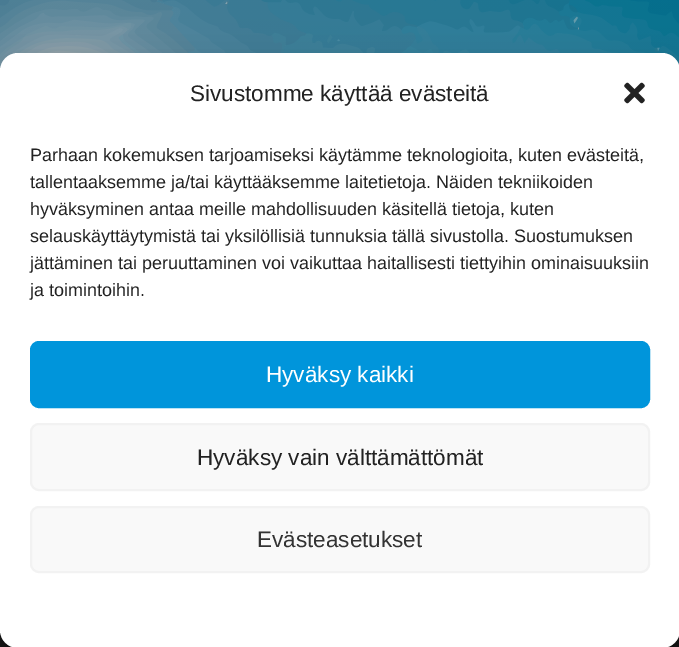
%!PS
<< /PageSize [679 647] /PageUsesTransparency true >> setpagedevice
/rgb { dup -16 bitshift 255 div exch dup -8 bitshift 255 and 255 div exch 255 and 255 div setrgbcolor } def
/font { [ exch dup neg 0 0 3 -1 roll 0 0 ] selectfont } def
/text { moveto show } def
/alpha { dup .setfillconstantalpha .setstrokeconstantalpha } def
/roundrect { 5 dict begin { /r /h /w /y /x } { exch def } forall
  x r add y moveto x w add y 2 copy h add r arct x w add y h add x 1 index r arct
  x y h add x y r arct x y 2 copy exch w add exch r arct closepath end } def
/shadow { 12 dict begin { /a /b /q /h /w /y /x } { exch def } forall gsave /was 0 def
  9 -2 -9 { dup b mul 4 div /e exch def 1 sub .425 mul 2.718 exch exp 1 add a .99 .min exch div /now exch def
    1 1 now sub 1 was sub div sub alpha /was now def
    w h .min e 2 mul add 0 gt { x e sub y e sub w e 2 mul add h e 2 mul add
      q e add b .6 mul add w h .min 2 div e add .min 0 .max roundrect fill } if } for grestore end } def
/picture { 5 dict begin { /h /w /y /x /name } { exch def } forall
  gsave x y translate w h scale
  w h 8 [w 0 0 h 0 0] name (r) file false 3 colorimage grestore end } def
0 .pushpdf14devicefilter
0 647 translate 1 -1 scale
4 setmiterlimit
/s1 { /LiberationSans-Regular 22.5 font 16#222222 rgb } def
/s2 { /LiberationSans-Regular 18 font 16#222222 rgb } def
/s3 { /LiberationSans-Regular 22.5 font 16#FFFFFF rgb } def
/s4 { /LiberationSans-Regular 22.5 font 16#333333 rgb } def
16#FFFFFF rgb
0 0 679 647 rectfill
(pic1.raw) 0 0 679 71 picture
16#171717 rgb
0 630 679 17 rectfill
16#000000 rgb
0 62 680 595 18 4.5 0.23 shadow
0 68 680 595 18 15 0.19 shadow
16#FFFFFF rgb
0 53 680 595 18 roundrect fill
s1
(Sivustomme käyttää evästeitä) 190 101 text
(pic2.raw) 624 82 21 22 picture
s2
(Parhaan kokemuksen tarjoamiseksi käytämme teknologioita, kuten evästeitä,) 30 161 text
(tallentaaksemme ja/tai käyttääksemme laitetietoja. Näiden tekniikoiden) 30 188 text
(hyväksyminen antaa meille mahdollisuuden käsitellä tietoja, kuten) 30 215 text
(selauskäyttäytymistä tai yksilöllisiä tunnuksia tällä sivustolla. Suostumuksen) 30 242 text
(jättäminen tai peruuttaminen voi vaikuttaa haitallisesti tiettyihin ominaisuuksiin) 30 269 text
(ja toimintoihin.) 30 296 text
16#0095DB rgb
31 342 618 65 8 roundrect gsave fill grestore
2 setlinewidth
stroke
s3
(Hyväksy kaikki) 266 382 text
16#F9F9F9 rgb
31 424 618 66 8 roundrect gsave fill grestore
16#F2F2F2 rgb
stroke
s1
(Hyväksy vain välttämättömät) 197 465 text
16#F9F9F9 rgb
31 507 618 65 8 roundrect gsave fill grestore
16#F2F2F2 rgb
stroke
s4
(Evästeasetukset) 257 547 text
.poppdf14devicefilter showpage
